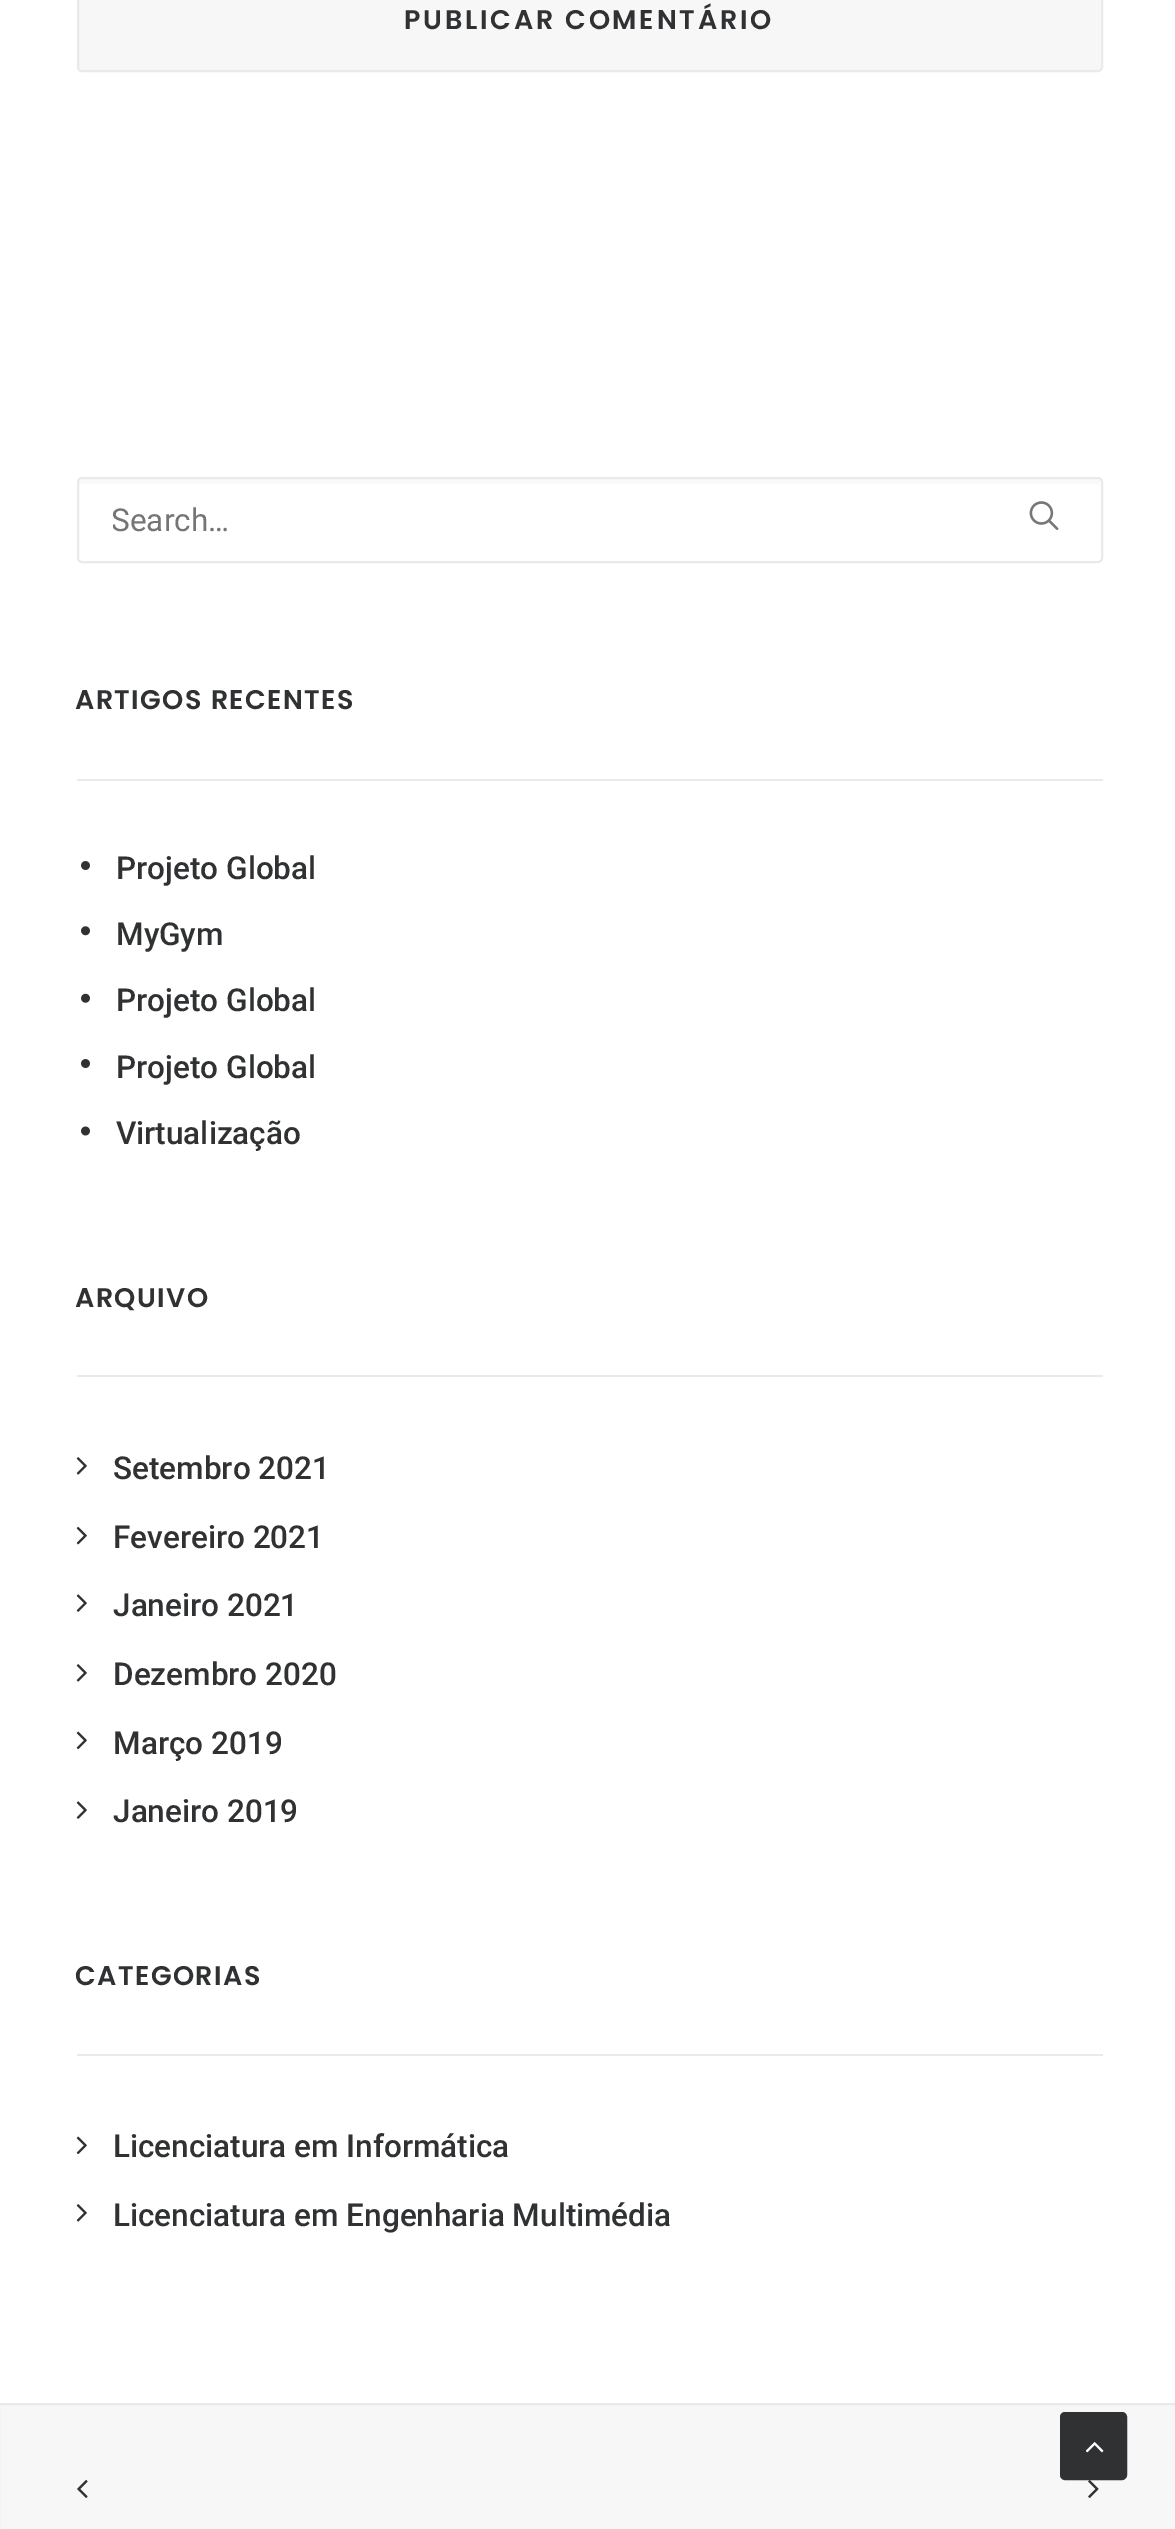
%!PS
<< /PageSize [1175 2529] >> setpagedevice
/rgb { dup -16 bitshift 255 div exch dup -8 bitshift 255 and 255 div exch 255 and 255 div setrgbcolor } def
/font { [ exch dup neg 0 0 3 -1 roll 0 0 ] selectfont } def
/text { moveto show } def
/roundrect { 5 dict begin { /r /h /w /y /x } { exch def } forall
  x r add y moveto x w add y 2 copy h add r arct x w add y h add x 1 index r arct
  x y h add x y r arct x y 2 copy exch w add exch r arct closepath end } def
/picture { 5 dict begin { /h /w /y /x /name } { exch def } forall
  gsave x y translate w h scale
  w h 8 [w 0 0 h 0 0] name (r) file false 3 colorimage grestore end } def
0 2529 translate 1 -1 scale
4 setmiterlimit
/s1 { /Roboto-Regular 31.5 font 16#757575 rgb } def
/s2 { /Roboto-Medium 31.5 font 16#303133 rgb } def
16#FFFFFF rgb
0 0 1175 2529 rectfill
16#F7F7F7 rgb
78 -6 1024 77 4 roundrect gsave fill grestore
16#EAEAEA rgb
2 setlinewidth
stroke
/Poppins-SemiBold 27 font
16#303133 rgb
404 29 moveto 2.75 0 (PUBLICAR COMENTÁRIO) ashow
16#F9F9F9 rgb
81 484 moveto 1098 484 lineto 1099 484 1100 485 1100 486 curveto 1100 481 lineto 1100 480 1099 479 1098 479 curveto 81 479 lineto 80 479 79 480 79 481 curveto 79 486 lineto 79 485 80 484 81 484 curveto closepath fill
16#EAEAEA rgb
78 478 1024 84 4 roundrect stroke
gsave
113 502 897 36 rectclip
s1
(Search…) 111 531 text
grestore
(pic1.raw) 1029 501 30 29 picture
77 779 1026 2 rectfill
16#303133 rgb
75 709 moveto 1.4 0 (ARTIGOS RECENTES) ashow
(pic2.raw) 81 861 9 9 picture
s2
(Projeto Global) 116 879 text
(pic3.raw) 81 926 9 10 picture
(MyGym) 116 945 text
(pic4.raw) 81 993 9 10 picture
(Projeto Global) 116 1011 text
(pic2.raw) 81 1059 9 9 picture
(Projeto Global) 116 1078 text
(pic5.raw) 81 1126 9 10 picture
(Virtualização) 116 1144 text
16#EAEAEA rgb
77 1375 1026 2 rectfill
/Poppins-SemiBold 27 font
16#303133 rgb
75 1307 moveto 1.4 0 (ARQUIVO) ashow
(pic6.raw) 76 1457 11 18 picture
s2
(Setembro 2021) 113 1479 text
(pic7.raw) 76 1526 11 19 picture
(Fevereiro 2021) 113 1548 text
(pic8.raw) 76 1594 11 18 picture
(Janeiro 2021) 113 1616 text
(pic6.raw) 76 1664 11 18 picture
(Dezembro 2020) 113 1685 text
(pic9.raw) 76 1731 11 19 picture
(Março 2019) 113 1754 text
(pic8.raw) 76 1801 11 18 picture
(Janeiro 2019) 113 1822 text
16#EAEAEA rgb
77 2054 1026 2 rectfill
/Poppins-SemiBold 27 font
16#303133 rgb
75 1985 moveto 1.4 0 (CATEGORIAS) ashow
(pic9.raw) 76 2136 11 19 picture
s2
(Licenciatura em Informática) 113 2157 text
(pic6.raw) 76 2204 11 18 picture
(Licenciatura em Engenharia Multimédia) 113 2226 text
16#F7F7F7 rgb
-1 2404 moveto 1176 2404 lineto 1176 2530 lineto -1 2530 lineto closepath gsave fill grestore
16#EAEAEA rgb
stroke
(pic10.raw) 77 2480 11 18 picture
(pic11.raw) 1088 2480 11 18 picture
16#303133 rgb
1061 2413 65 66 4 roundrect gsave fill grestore
stroke
(pic12.raw) 1085 2442 19 11 picture
showpage
